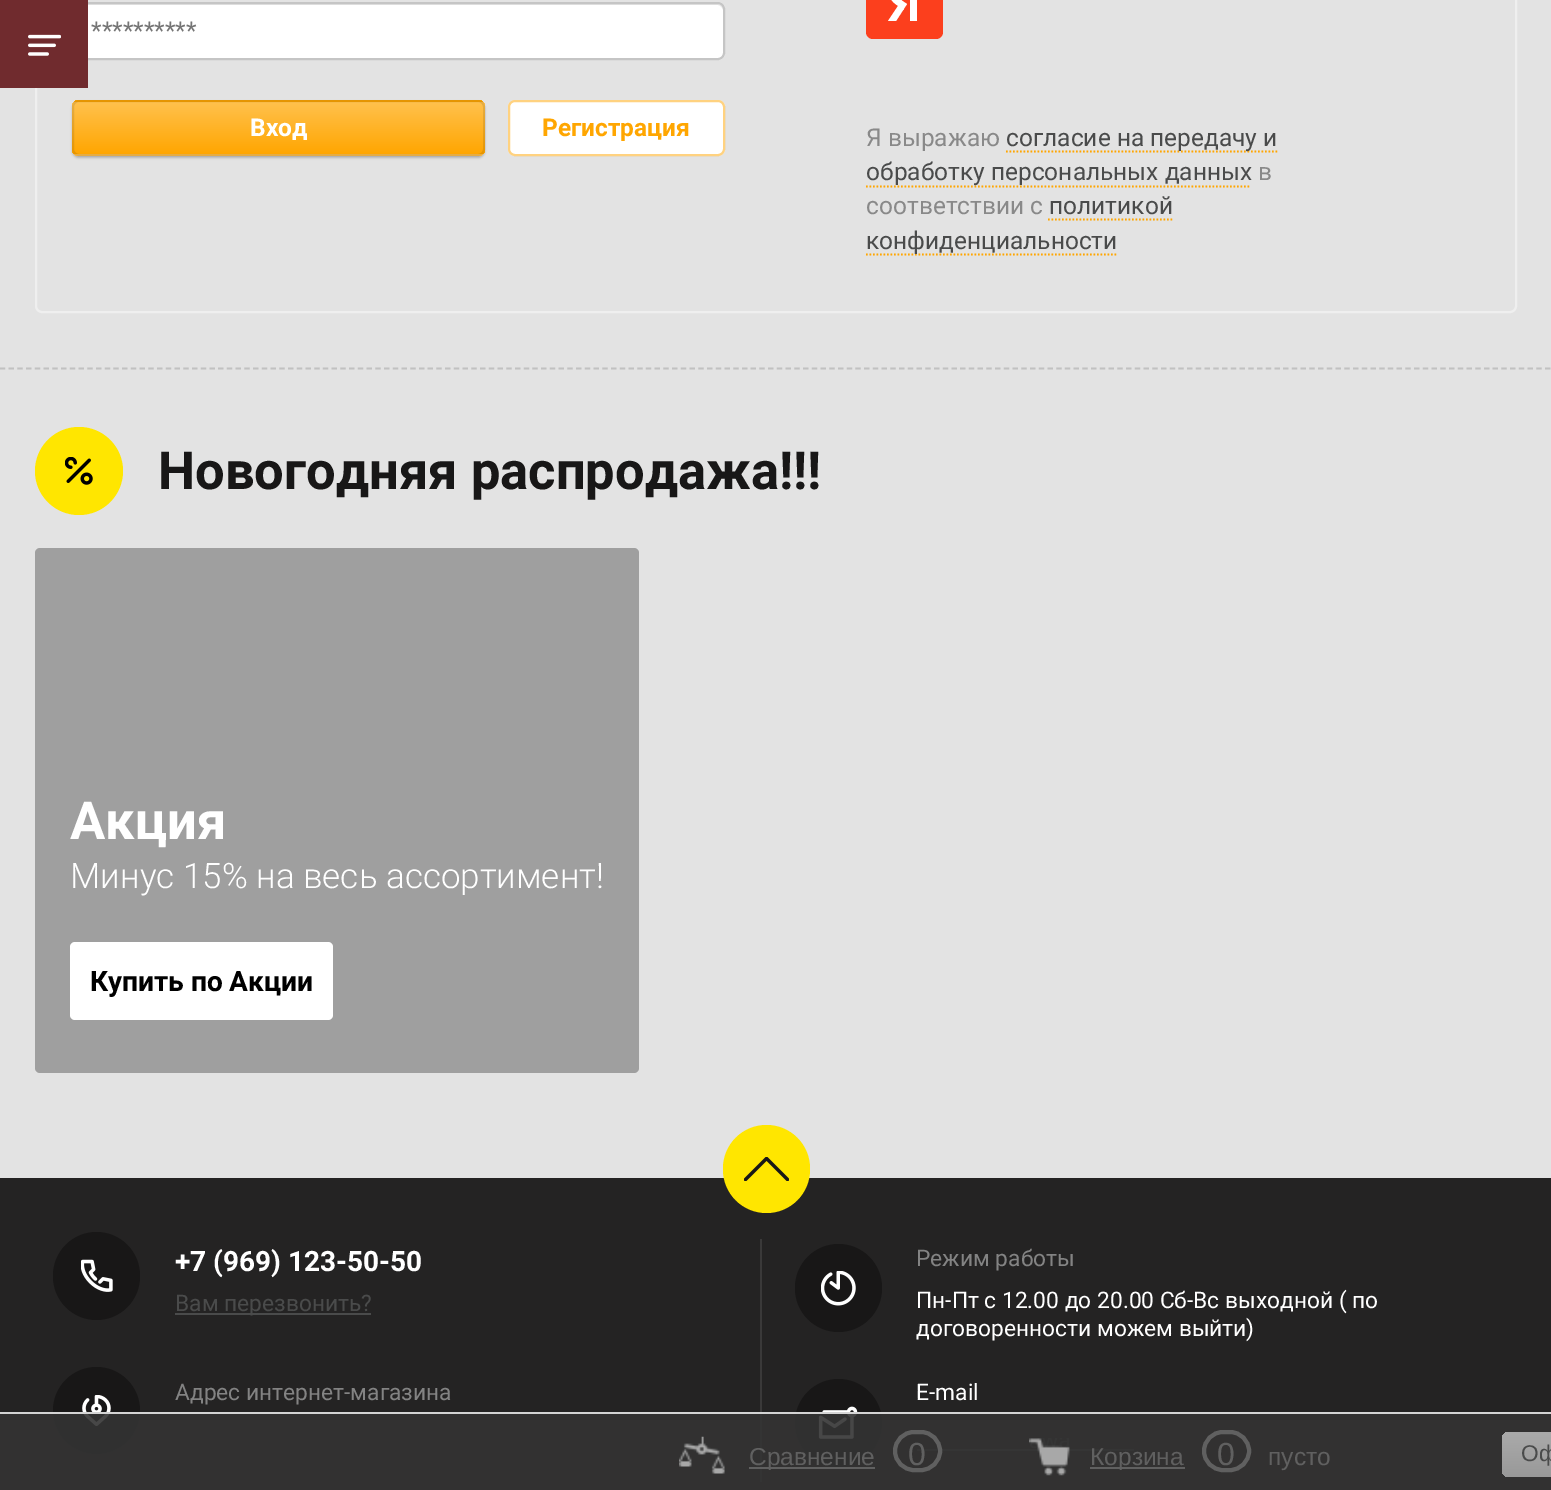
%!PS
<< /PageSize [1551 1490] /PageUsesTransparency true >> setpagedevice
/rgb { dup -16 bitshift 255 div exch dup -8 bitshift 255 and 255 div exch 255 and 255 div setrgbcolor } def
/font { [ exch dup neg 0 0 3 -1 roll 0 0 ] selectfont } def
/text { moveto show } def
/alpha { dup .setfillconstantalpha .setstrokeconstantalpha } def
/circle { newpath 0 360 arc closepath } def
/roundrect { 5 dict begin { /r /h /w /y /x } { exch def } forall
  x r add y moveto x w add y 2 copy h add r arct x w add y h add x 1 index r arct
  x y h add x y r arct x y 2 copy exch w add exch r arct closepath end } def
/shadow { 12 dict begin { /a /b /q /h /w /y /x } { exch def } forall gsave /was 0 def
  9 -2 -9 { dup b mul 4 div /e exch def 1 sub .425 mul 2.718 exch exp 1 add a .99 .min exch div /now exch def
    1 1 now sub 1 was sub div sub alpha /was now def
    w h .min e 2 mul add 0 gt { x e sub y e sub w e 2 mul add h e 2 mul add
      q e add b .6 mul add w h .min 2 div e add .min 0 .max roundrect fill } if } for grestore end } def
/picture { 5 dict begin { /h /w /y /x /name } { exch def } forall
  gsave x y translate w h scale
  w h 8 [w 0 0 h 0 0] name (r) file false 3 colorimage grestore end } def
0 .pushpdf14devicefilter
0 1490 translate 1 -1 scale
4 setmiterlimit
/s1 { /Roboto-Regular 24.5 font 16#757575 rgb } def
/s2 { /Roboto-Bold 24.5 font 16#FFFFFF rgb } def
/s3 { /Roboto-Bold 24.5 font 16#FFA601 rgb } def
/s4 { /Roboto-Regular 24.5 font 16#898989 rgb } def
/s5 { /Roboto-Regular 24.5 font 16#4A4B4B rgb } def
/s6 { /LiberationSans-Regular 24.5 font 16#606060 rgb } def
/s7 { /LiberationSans-Regular 32 font 16#606060 rgb } def
/s8 { /LiberationSans-Regular 22.75 font 16#4A4B4B rgb } def
/s9 { /Roboto-Bold 52.5 font 16#181717 rgb } def
/s10 { /Roboto-Bold 52.5 font 16#FFFFFF rgb } def
/s11 { /Roboto-Light 35 font 16#FFFFFF rgb } def
/s12 { /Roboto-Bold 28 font 16#000000 rgb } def
/s13 { /Roboto-Bold 28 font 16#FFFFFF rgb } def
/s14 { /Roboto-Regular 22.75 font 16#4A4B4B rgb } def
/s15 { /Roboto-Regular 22.75 font 16#838383 rgb } def
/s16 { /Roboto-Regular 22.75 font 16#FFFFFF rgb } def
16#E3E3E3 rgb
0 0 1551 1490 rectfill
16#EFEFEF rgb
2 setlinewidth
36 -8 1480 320 6 roundrect stroke
16#FFFFFF rgb
72 2 653 58 7 roundrect fill
16#E6E6E6 rgb
79 5 moveto 718 5 lineto 720 5 723 8 723 10 curveto 723 9 lineto 723 6 721 4 718 4 curveto 79 4 lineto 76 4 74 6 74 9 curveto 74 10 lineto 74 8 76 5 79 5 curveto closepath fill
16#C5C5C5 rgb
73 3 651 56 6 roundrect stroke
16#702B2E rgb
0 0 88 88 rectfill
(pic1.raw) 28 34 33 22 picture
16#C1C1C1 rgb
1.8 setlinewidth
[5.25 3.48] 0 setdash
0 368.5 moveto 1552 368.5 lineto stroke
s1
(**********) 91 39 text
16#000000 rgb
72 102 413 56 7 1 0.2 shadow
gsave
72 100 413 56 7 roundrect clip newpath
gsave 72 100 moveto 485 100 lineto 485 102 lineto 72 102 lineto closepath clip newpath
<< /ShadingType 2 /ColorSpace /DeviceRGB /Coords [278 49 278 102] /Extend [true true] /Function << /FunctionType 2 /Domain [0 1] /C0 [1 0.757 0.306] /C1 [1 0.651 0.004] /N 1 >> >> shfill grestore
gsave 72 102 moveto 485 102 lineto 485 154 lineto 72 154 lineto closepath clip newpath
<< /ShadingType 2 /ColorSpace /DeviceRGB /Coords [278 101 278 154] /Extend [true true] /Function << /FunctionType 2 /Domain [0 1] /C0 [1 0.757 0.306] /C1 [1 0.651 0.004] /N 1 >> >> shfill grestore
gsave 72 154 moveto 485 154 lineto 485 156 lineto 72 156 lineto closepath clip newpath
<< /ShadingType 2 /ColorSpace /DeviceRGB /Coords [278 154 278 207] /Extend [true true] /Function << /FunctionType 2 /Domain [0 1] /C0 [1 0.757 0.306] /C1 [1 0.651 0.004] /N 1 >> >> shfill grestore
grestore
0.1 alpha
2 setlinewidth
[] 0 setdash
73 101 411 54 6 roundrect stroke
1 alpha
s2
(Вход) 250 136 text
508 100 217 56 7 roundrect fill
0.5 alpha
16#FFA601 rgb
509 101 215 54 6 roundrect stroke
1 alpha
(Регистрация) 542 136 text
16#FC3F1D rgb
866 -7 77 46 7 roundrect fill
16#FFFFFF rgb
910 21 moveto 917 21 lineto 917 -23 lineto 906 -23 lineto 895 -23 889 -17 889 -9 curveto 889 -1 893 3 900 7 curveto 904 10 lineto 898 6 lineto 888 21 lineto 896 21 lineto 907 4 lineto 904 2 lineto 899 -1 897 -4 897 -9 curveto 897 -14 900 -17 906 -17 curveto 910 -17 lineto closepath fill
s4
(Я выражаю) 866 146 text
16#FFA601 rgb
1.8 setlinewidth
[1.75 1.75] 0 setdash
1006 151.5 moveto 1277.5 151.5 lineto stroke
s5
(согласие на передачу и) 1006 146 text
16#FFA601 rgb
866 186.5 moveto 1251 186.5 lineto stroke
s5
(обработку персональных данных) 866 180 text
s4
(в) 1258 180 text
(соответствии с) 866 214 text
s5
(политикой) 1049 214 text
16#FFA601 rgb
1048 219.5 moveto 1172.5 219.5 lineto stroke
866 254.5 moveto 1116.5 254.5 lineto stroke
s5
(конфиденциальности) 866 249 text
16#242323 rgb
0 1178 1551 312 rectfill
16#3A3939 rgb
760 1239 2 243 rectfill
16#181717 rgb
96.5 1410.5 43.5 circle fill
(pic8.raw) 82 1395 29 31 picture
795 1379 87 88 43.5 roundrect fill
(pic9.raw) 818 1406 40 33 picture
16#4A4B4B rgb
917 1449 217 2 rectfill
0.9 alpha
16#333333 rgb
0 1414 1551 76 rectfill
1 alpha
16#D4D4D4 rgb
0 1412 1551 2 rectfill
(pic2.raw) 679 1436 46 38 picture
16#606060 rgb
749 1467 126 2 rectfill
s6
(Сравнение) 749 1465 text
4 setlinewidth
[] 0 setdash
895 1432 45 38 19 roundrect stroke
s7
(0) 908 1465 text
(pic3.raw) 1029 1438 41 38 picture
1090 1467 95 2 rectfill
s6
(Корзина) 1090 1465 text
1204 1432 45 38 19 roundrect stroke
s7
(0) 1217 1465 text
s6
(пусто) 1268 1465 text
gsave 1502 1432 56 45 7 roundrect clip newpath
<< /ShadingType 2 /ColorSpace /DeviceRGB /Coords [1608 1432 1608 1477] /Extend [true true] /Function << /FunctionType 2 /Domain [0 1] /C0 [0.667 0.667 0.667] /C1 [0.6 0.6 0.6] /N 1 >> >> shfill grestore
s8
(Оф) 1521 1461 text
16#FFE600 rgb
79 471 44 circle fill
(pic4.raw) 65 457 28 28 picture
s9
(Новогодняя распродажа!!!) 158 489 text
16#9F9F9F rgb
35 548 604 525 5 roundrect fill
s10
(Акция) 70 839 text
s11
(Минус 15% на весь ассортимент!) 70 888 text
70 942 263 78 5 roundrect fill
s12
(Купить по Акции) 90 991 text
16#FFE600 rgb
723 1125 87 88 43.5 roundrect fill
(pic5.raw) 744 1157 45 24 picture
16#181717 rgb
53 1232 87 88 43.5 roundrect fill
(pic6.raw) 81 1259 32 33 picture
s13
(+7 \(969\) 123-50-50) 175 1271 text
16#4A4B4B rgb
175 1313 196 2 rectfill
s14
(Вам перезвонить?) 175 1311 text
16#181717 rgb
795 1244 87 88 43.5 roundrect fill
(pic7.raw) 821 1271 35 35 picture
s15
(Режим работы) 916 1266 text
s16
(Пн-Пт с 12.00 до 20.00 Сб-Вс выходной \( по) 916 1308 text
(договоренности можем выйти\)) 916 1336 text
s15
(Адрес интернет-магазина) 175 1400 text
s16
(E-mail) 916 1400 text
.poppdf14devicefilter showpage
